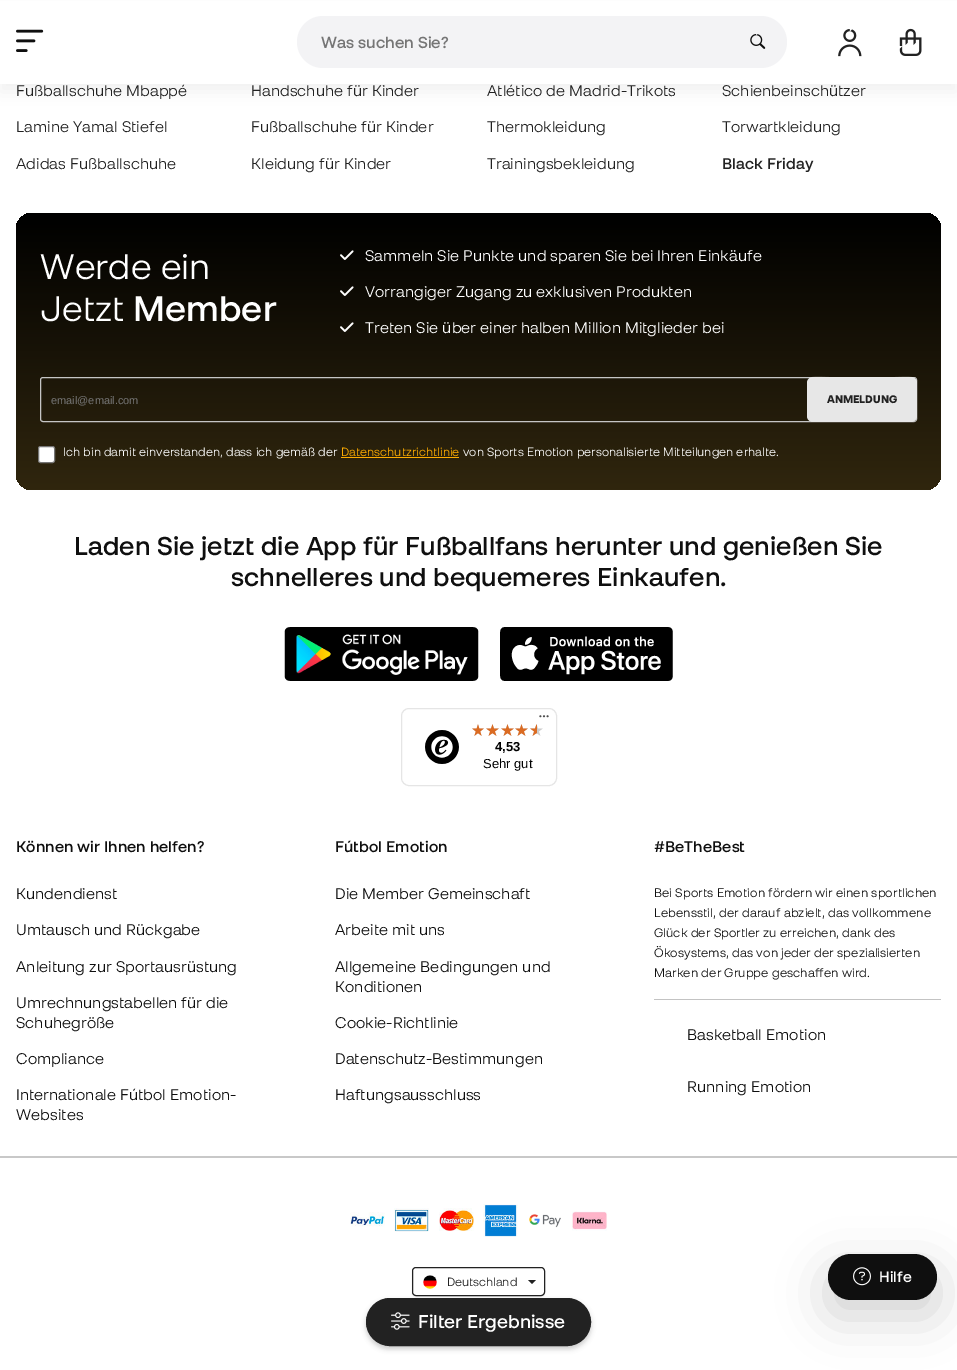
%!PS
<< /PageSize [957 1370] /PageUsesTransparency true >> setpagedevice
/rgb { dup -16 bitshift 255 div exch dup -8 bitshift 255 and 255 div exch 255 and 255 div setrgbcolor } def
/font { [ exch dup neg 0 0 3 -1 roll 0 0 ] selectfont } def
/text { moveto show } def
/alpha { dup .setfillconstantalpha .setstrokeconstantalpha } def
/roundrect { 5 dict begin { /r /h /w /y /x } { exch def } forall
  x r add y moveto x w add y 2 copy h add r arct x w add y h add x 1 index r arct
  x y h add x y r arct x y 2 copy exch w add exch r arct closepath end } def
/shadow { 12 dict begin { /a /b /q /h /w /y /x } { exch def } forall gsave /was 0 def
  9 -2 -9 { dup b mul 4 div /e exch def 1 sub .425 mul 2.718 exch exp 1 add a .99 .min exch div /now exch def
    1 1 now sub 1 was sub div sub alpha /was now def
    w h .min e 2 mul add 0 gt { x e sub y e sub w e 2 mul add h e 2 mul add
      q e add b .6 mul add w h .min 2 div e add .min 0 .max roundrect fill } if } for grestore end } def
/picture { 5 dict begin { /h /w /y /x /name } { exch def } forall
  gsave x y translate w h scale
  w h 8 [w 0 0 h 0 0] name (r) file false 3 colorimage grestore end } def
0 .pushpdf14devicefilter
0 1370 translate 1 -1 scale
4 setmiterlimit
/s1 { /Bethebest-SemiBold 16 font 16#757575 rgb } def
/s2 { /LiberationSans-Regular 11 font 16#757575 rgb } def
/s3 { /Bethebest-Bold 11 font 16#222222 rgb } def
/s4 { /LiberationSans-Bold 13 font 16#000000 rgb } def
/s5 { /LiberationSans-Regular 13 font 16#000000 rgb } def
/s6 { /Bethebest-Regular 12 font 16#222222 rgb } def
/s7 { /Bethebest-SemiBold 15 font 16#FFFFFF rgb } def
/s8 { /Bethebest-SemiBold 18.5 font 16#FFFFFF rgb } def
16#FFFFFF rgb
0 0 957 1370 rectfill
16#000000 rgb
0 8 957 84 0 8 0.05 shadow
16#FFFFFF rgb
0 1 957 83 rectfill
(pic1.raw) 16 29 28 23 picture
16#F3F3F5 rgb
297 16 490 52 26 roundrect fill
s1
(Was suchen Sie?) 321 48 text
(pic2.raw) 750 34 16 15 picture
(pic3.raw) 838 29 24 28 picture
(pic4.raw) 899 28 23 28 picture
/Bethebest-Regular 15.5 font
16#222222 rgb
16 96 moveto 0.08 0 (Fußballschuhe Mbappé) ashow
251 96 moveto 0.08 0 (Handschuhe für Kinder) ashow
487 96 moveto 0.08 0 (Atlético de Madrid-Trikots) ashow
722 96 moveto 0.08 0 (Schienbeinschützer) ashow
16 132 moveto 0.08 0 (Lamine Yamal Stiefel) ashow
251 132 moveto 0.08 0 (Fußballschuhe für Kinder) ashow
487 132 moveto 0.08 0 (Thermokleidung) ashow
722 132 moveto 0.08 0 (Torwartkleidung) ashow
16 169 moveto 0.08 0 (Adidas Fußballschuhe) ashow
251 169 moveto 0.08 0 (Kleidung für Kinder) ashow
487 169 moveto 0.08 0 (Trainingsbekleidung) ashow
/Bethebest-SemiBold 15.5 font
722 169 moveto 0.08 0 (Black Friday) ashow
gsave 16 213 925 277 16 roundrect clip newpath
<< /ShadingType 2 /ColorSpace /DeviceRGB /Coords [479 213 479 490] /Extend [true true] /Function << /FunctionType 2 /Domain [0 1] /C0 [0 0 0] /C1 [0.188 0.149 0.055] /N 1 >> >> shfill grestore
/Bethebest-Regular 35.5 font
16#FFFFFF rgb
40 279 moveto 0.08 0 (Werde ein) ashow
40 321 moveto 0.08 0 (Jetzt) ashow
/Bethebest-SemiBold 35.5 font
133 321 moveto 0.08 0 (Member) ashow
(pic5.raw) 340 250 14 10 picture
/Bethebest-Regular 15.5 font
365 261 moveto 0.08 0 (Sammeln Sie Punkte und sparen Sie bei Ihren Einkäufe) ashow
(pic6.raw) 340 286 14 10 picture
365 297 moveto 0.08 0 (Vorrangiger Zugang zu exklusiven Produkten) ashow
(pic7.raw) 340 322 14 10 picture
365 333 moveto 0.08 0 (Treten Sie über einer halben Million Mitglieder bei) ashow
16#C5C5C5 rgb
40.5 377.5 876 44 2.5 roundrect stroke
s2
(email@email.com) 51 404 text
16#000000 rgb
807 378 110 45 6 0.5 0.07 shadow
16#E7E7E7 rgb
807 377 110 45 6 roundrect fill
0.15 alpha
16#FFFFFF rgb
813 378 moveto 911 378 lineto 914 378 917 381 917 384 curveto 917 373 901 377 895 377 curveto 829 377 lineto 823 377 807 373 807 384 curveto 807 381 810 378 813 378 curveto closepath fill
1 alpha
s3
(ANMELDUNG) 827 403 text
16#FFFFFF rgb
38.5 446.5 16 16 2 roundrect gsave fill grestore
16#767676 rgb
stroke
/Bethebest-Regular 12 font
16#FFFFFF rgb
63 456 moveto 0.08 0 (Ich bin damit einverstanden, dass ich gemäß der) ashow
16#FFAC00 rgb
341 456 moveto 0.08 0 (Datenschutzrichtlinie) ashow
341 457 118 1 rectfill
16#FFFFFF rgb
463 456 moveto 0.08 0 (von Sports Emotion personalisierte Mitteilungen erhalte.) ashow
/Bethebest-SemiBold 25.85 font
16#0F0F0F rgb
74 555 moveto 0.08 0 (Laden Sie jetzt die App für Fußballfans herunter und genießen Sie) ashow
231 586 moveto 0.08 0 (schnelleres und bequemeres Einkaufen.) ashow
(pic8.raw) 284 627 195 54 picture
(pic9.raw) 500 627 173 54 picture
16#E5E5E5 rgb
401.5 708.5 155 77 7.5 roundrect stroke
(pic10.raw) 539 715 10 3 picture
(pic11.raw) 425 730 34 34 picture
(pic12.raw) 472 724 12 12 picture
(pic13.raw) 486 724 13 12 picture
(pic14.raw) 501 724 13 12 picture
(pic13.raw) 515 724 13 12 picture
(pic13.raw) 530 724 13 12 picture
(pic15.raw) 472 724 12 12 picture
(pic16.raw) 486 724 13 12 picture
(pic17.raw) 501 724 13 12 picture
(pic16.raw) 515 724 13 12 picture
(pic18.raw) 530 724 7 12 picture
s4
(4,53) 495 751 text
s5
(Sehr gut) 483 768 text
/Bethebest-SemiBold 15.5 font
16#0F0F0F rgb
16 852 moveto 0.08 0 (Können wir Ihnen helfen?) ashow
/Bethebest-Regular 15.5 font
16 899 moveto 0.08 0 (Kundendienst) ashow
16 935 moveto 0.08 0 (Umtausch und Rückgabe) ashow
16 972 moveto 0.08 0 (Anleitung zur Sportausrüstung) ashow
16 1008 moveto 0.08 0 (Umrechnungstabellen für die) ashow
16 1028 moveto 0.08 0 (Schuhegröße) ashow
16 1064 moveto 0.08 0 (Compliance) ashow
16 1100 moveto 0.08 0 (Internationale Fútbol Emotion-) ashow
16 1120 moveto 0.08 0 (Websites) ashow
/Bethebest-SemiBold 15.5 font
335 852 moveto 0.08 0 (Fútbol Emotion) ashow
/Bethebest-Regular 15.5 font
335 899 moveto 0.08 0 (Die Member Gemeinschaft) ashow
335 935 moveto 0.08 0 (Arbeite mit uns) ashow
335 972 moveto 0.08 0 (Allgemeine Bedingungen und) ashow
335 992 moveto 0.08 0 (Konditionen) ashow
335 1028 moveto 0.08 0 (Cookie-Richtlinie) ashow
335 1064 moveto 0.08 0 (Datenschutz-Bestimmungen) ashow
335 1100 moveto 0.08 0 (Haftungsausschluss) ashow
/Bethebest-SemiBold 15.5 font
654 852 moveto 0.08 0 (#BeTheBest) ashow
/Bethebest-Regular 12.4 font
654 897 moveto 0.08 0 (Bei Sports Emotion fördern wir einen sportlichen) ashow
654 917 moveto 0.08 0 (Lebensstil, der darauf abzielt, das vollkommene) ashow
654 937 moveto 0.08 0 (Glück der Sportler zu erreichen, dank des) ashow
654 957 moveto 0.08 0 (Ökosystems, das von jeder der spezialisierten) ashow
654 977 moveto 0.08 0 (Marken der Gruppe geschaffen wird.) ashow
16#C3C3C3 rgb
654 999 287 1 rectfill
/Bethebest-Regular 15.5 font
16#0F0F0F rgb
687 1040 moveto 0.08 0 (Basketball Emotion) ashow
687 1092 moveto 0.08 0 (Running Emotion) ashow
16#C8C8C8 rgb
0 1156 957 2 rectfill
(pic19.raw) 350 1212 35 15 picture
(pic20.raw) 394 1208 35 24 picture
(pic21.raw) 439 1208 35 23 picture
(pic22.raw) 483 1204 35 33 picture
(pic23.raw) 529 1214 32 14 picture
(pic24.raw) 572 1211 35 20 picture
gsave
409 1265 moveto 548 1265 lineto 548 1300 lineto 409 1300 lineto closepath 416 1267 moveto 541 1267 lineto 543 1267 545 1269 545 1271 curveto 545 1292 lineto 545 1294 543 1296 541 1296 curveto 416 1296 lineto 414 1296 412 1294 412 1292 curveto 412 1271 lineto 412 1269 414 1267 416 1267 curveto closepath eoclip newpath
16#000000 rgb
412 1268 133 29 4 0.5 0.07 shadow
grestore
16#222222 rgb
412.5 1267.5 132 28 3.5 roundrect stroke
(pic25.raw) 423 1275 14 14 picture
s6
(Deutschland) 447 1286 text
528 1280 moveto 536 1280 lineto 532 1284 lineto closepath fill
16#000000 rgb
828 1270 109 46 23 24 0.18 shadow
16#0F0F0F rgb
828 1254 109 46 23 roundrect fill
(pic26.raw) 853 1267 18 19 picture
s7
(Hilfe) 879 1282 text
16#000000 rgb
366 1301 225 48 24 2.5 0.2 shadow
16#222222 rgb
366.5 1298.5 224 47 23.5 roundrect gsave fill grestore
stroke
(pic27.raw) 391 1312 19 18 picture
s8
(Filter Ergebnisse) 418 1328 text
.poppdf14devicefilter showpage
